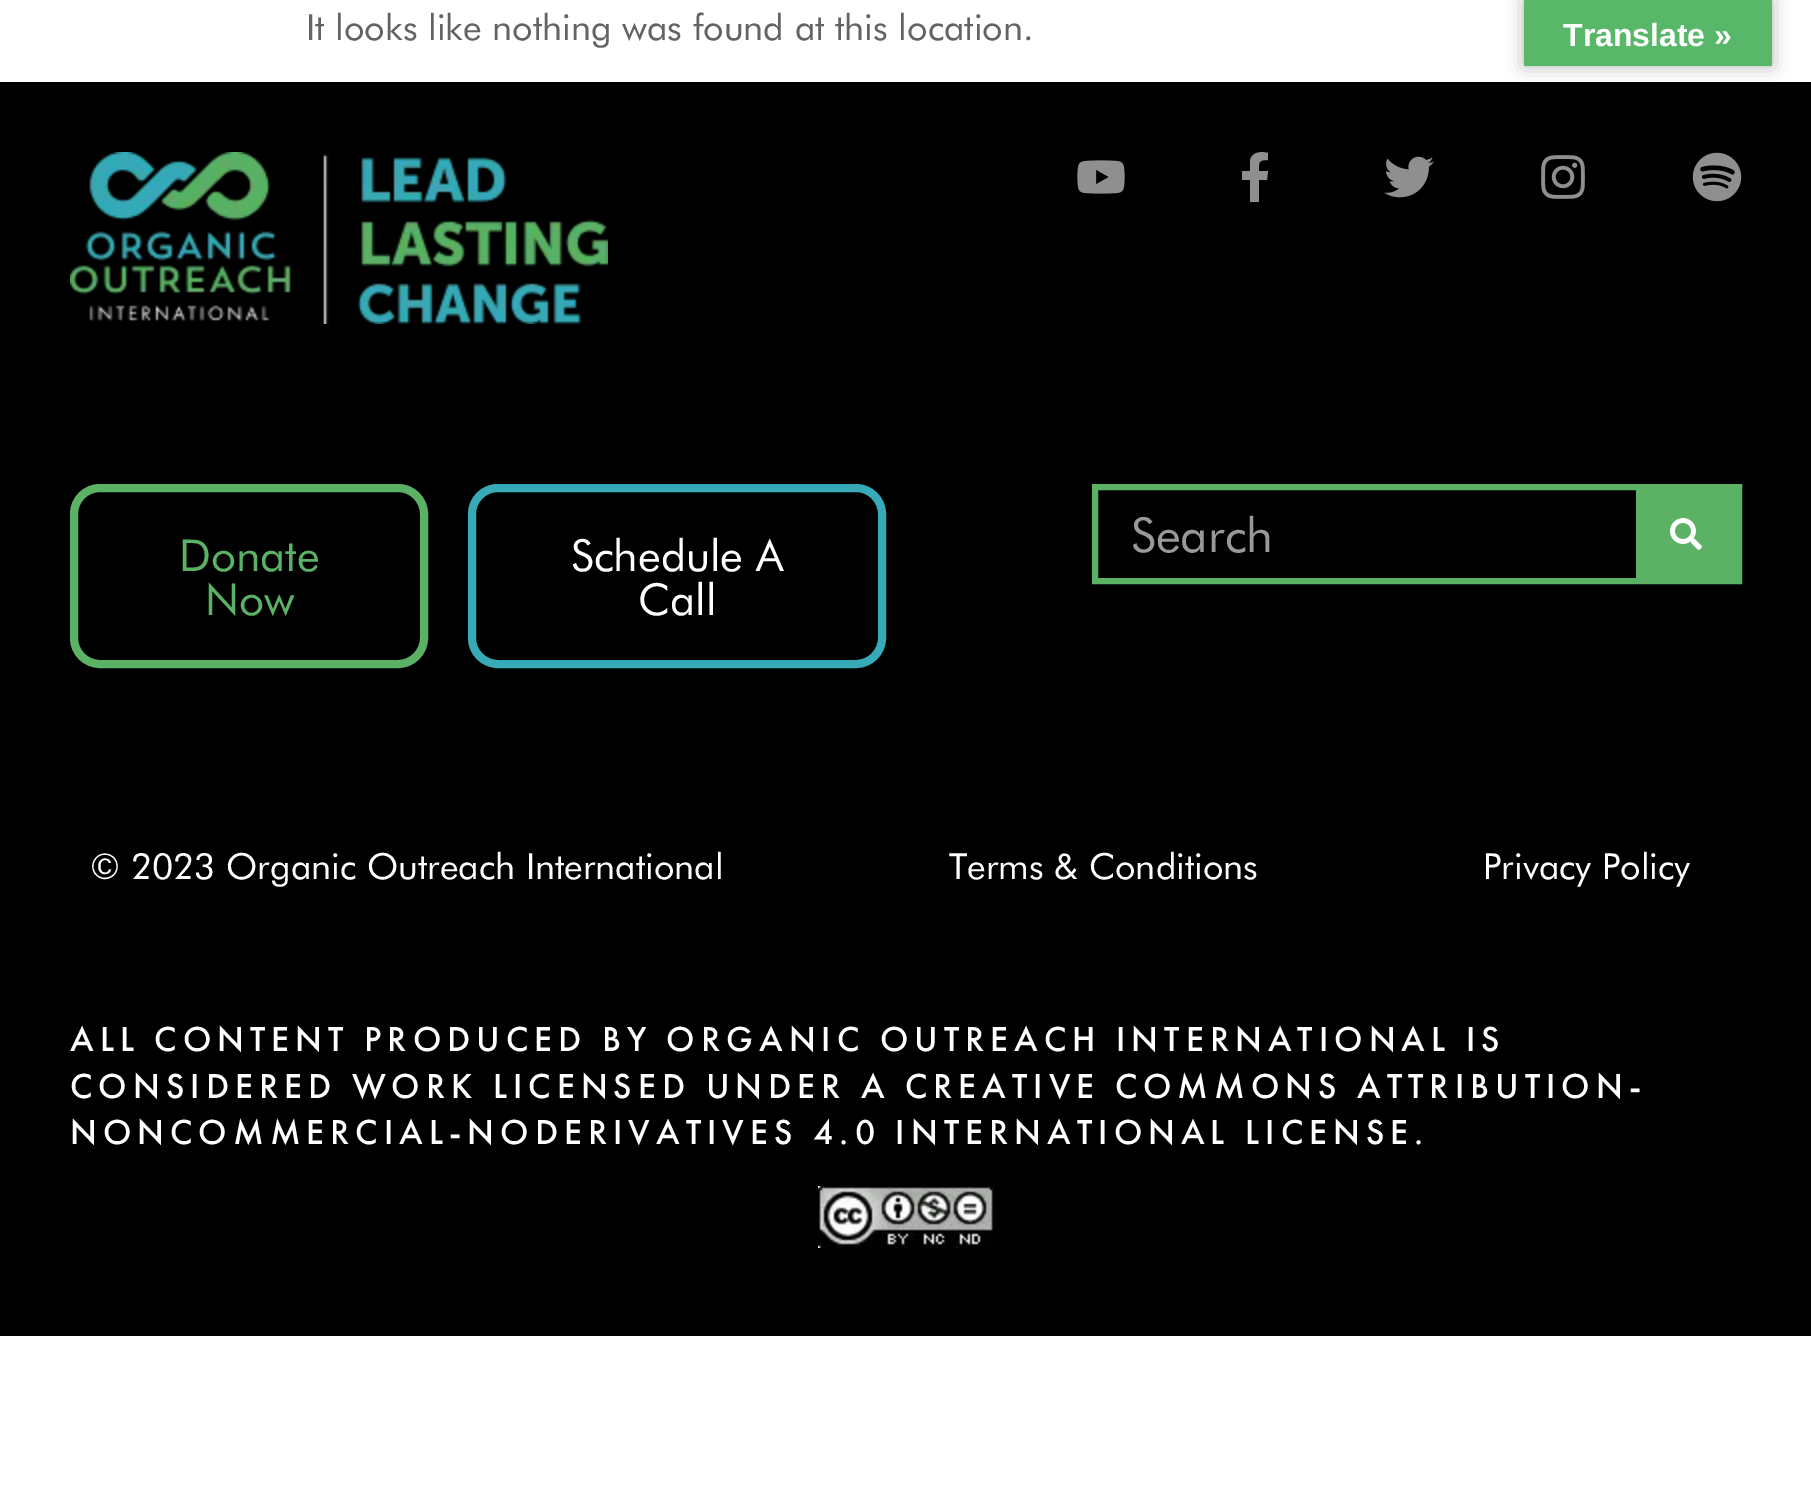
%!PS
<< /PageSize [1811 1506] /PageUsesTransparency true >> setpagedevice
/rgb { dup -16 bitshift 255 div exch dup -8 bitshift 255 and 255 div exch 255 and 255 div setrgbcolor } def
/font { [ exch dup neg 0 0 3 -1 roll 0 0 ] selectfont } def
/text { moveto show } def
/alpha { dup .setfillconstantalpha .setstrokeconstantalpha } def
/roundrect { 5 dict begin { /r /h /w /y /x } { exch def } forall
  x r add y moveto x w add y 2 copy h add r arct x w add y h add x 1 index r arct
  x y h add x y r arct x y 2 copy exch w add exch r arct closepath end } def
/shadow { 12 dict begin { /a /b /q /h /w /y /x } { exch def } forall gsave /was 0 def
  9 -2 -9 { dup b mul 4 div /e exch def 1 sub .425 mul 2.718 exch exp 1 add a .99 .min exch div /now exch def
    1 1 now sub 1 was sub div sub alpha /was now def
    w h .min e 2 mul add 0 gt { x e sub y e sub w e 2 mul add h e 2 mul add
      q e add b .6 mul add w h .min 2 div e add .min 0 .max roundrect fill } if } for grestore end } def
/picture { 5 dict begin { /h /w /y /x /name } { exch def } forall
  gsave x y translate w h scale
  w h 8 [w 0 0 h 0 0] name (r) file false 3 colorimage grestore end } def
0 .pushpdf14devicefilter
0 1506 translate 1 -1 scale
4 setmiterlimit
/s1 { /Futura-Regular 36 font 16#636363 rgb } def
/s2 { /LiberationSans-Bold 32 font 16#FFFFFF rgb } def
/s3 { /Futura-Regular 44 font 16#5BB265 rgb } def
/s4 { /Futura-Regular 44 font 16#FFFFFF rgb } def
/s5 { /Futura-Regular 48 font 16#999999 rgb } def
/s6 { /Futura-Regular 36 font 16#FFFFFF rgb } def
16#FFFFFF rgb
0 0 1811 1506 rectfill
s1
(It looks like nothing was found at this location.) 306 40 text
16#000000 rgb
0 82 1811 1254 rectfill
1524 0 248 66 0 9 0.3 shadow
16#59B769 rgb
1524 0 248 66 rectfill
s2
(Translate ») 1563 46 text
(pic1.raw) 70 152 538 172 picture
(pic2.raw) 1077 160 48 34 picture
16#8F8F8F rgb
1267 180 moveto 1268 171 lineto 1259 171 lineto 1259 162 1258 160 1268 160 curveto 1268 153 lineto 1261 151 1251 152 1250 161 curveto 1250 171 lineto 1242 171 lineto 1242 180 lineto 1250 180 lineto 1250 202 lineto 1259 202 lineto 1259 180 lineto closepath fill
(pic3.raw) 1384 156 50 42 picture
(pic4.raw) 1541 155 44 44 picture
(pic5.raw) 1692 152 50 50 picture
16#5BB265 rgb
8 setlinewidth
74 488 350 176 26 roundrect stroke
s3
(Donate) 179 571 text
(Now) 205 615 text
16#37AAB7 rgb
472 488 410 176 26 roundrect stroke
s4
(Schedule A) 571 571 text
(Call) 638 615 text
16#5BB265 rgb
6 setlinewidth
1095 487 644 94 rectstroke
s5
(Search) 1131 552 text
16#5BB265 rgb
1636 490 100 88 rectfill
(pic6.raw) 1670 518 32 32 picture
s6
(© 2023 Organic Outreach International) 90 879 text
(Terms & Conditions) 949 879 text
(Privacy Policy) 1483 879 text
/FuturaPT-Medium 36 font
70 1051 moveto 6 0 (ALL CONTENT PRODUCED BY ORGANIC OUTREACH INTERNATIONAL IS) ashow
70 1098 moveto 6 0 (CONSIDERED WORK LICENSED UNDER A CREATIVE COMMONS ATTRIBUTION-) ashow
70 1144 moveto 6 0 (NONCOMMERCIAL-NODERIVATIVES 4.0 INTERNATIONAL LICENSE.) ashow
(pic7.raw) 818 1186 176 62 picture
.poppdf14devicefilter showpage
